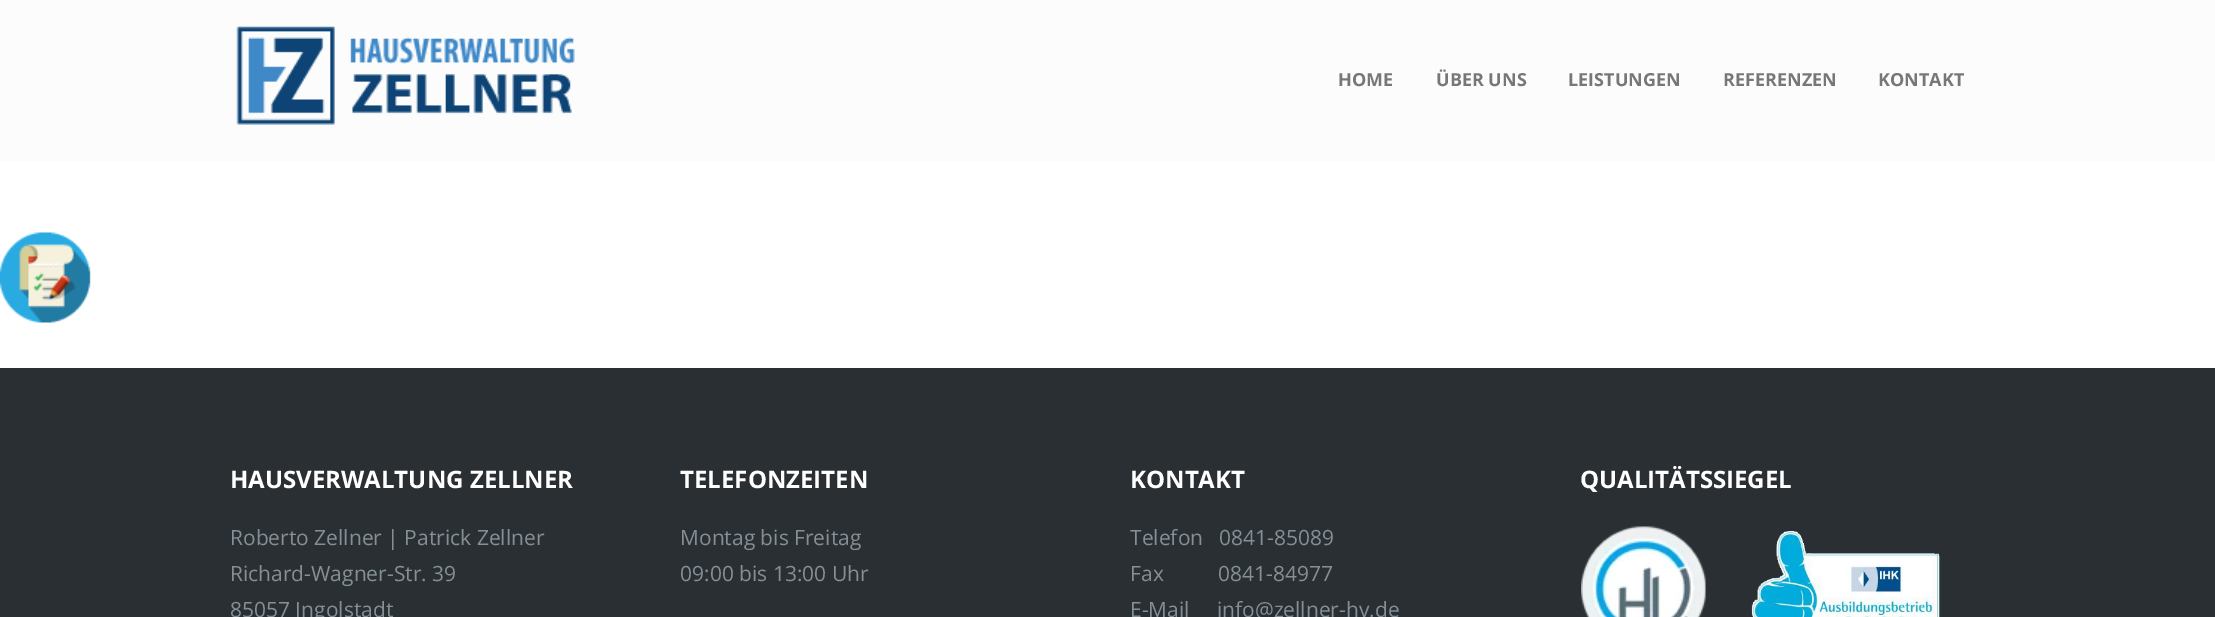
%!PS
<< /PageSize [2215 617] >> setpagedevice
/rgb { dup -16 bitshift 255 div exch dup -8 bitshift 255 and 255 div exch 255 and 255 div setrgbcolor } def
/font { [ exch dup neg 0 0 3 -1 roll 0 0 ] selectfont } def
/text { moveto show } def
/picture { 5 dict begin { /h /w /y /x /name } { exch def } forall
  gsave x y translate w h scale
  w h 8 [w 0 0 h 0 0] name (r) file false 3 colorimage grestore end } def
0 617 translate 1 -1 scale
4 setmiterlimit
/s1 { /OpenSans-Bold 18 font 16#777777 rgb } def
/s2 { /OpenSans-Bold 24 font 16#FFFFFF rgb } def
/s3 { /OpenSans-Regular 21 font 16#858F96 rgb } def
16#FFFFFF rgb
0 0 2215 617 rectfill
16#FCFCFC rgb
0 0 2215 161 rectfill
(pic1.raw) 236 26 339 99 picture
s1
(HOME) 1338 86 text
(ÜBER UNS) 1436 86 text
(LEISTUNGEN) 1568 86 text
(REFERENZEN) 1723 86 text
(KONTAKT) 1878 86 text
(pic2.raw) 0 232 91 91 picture
16#2A2F33 rgb
0 368 2215 249 rectfill
s2
(HAUSVERWALTUNG ZELLNER) 230 488 text
s3
(Roberto Zellner | Patrick Zellner) 230 545 text
(Richard-Wagner-Str. 39) 230 581 text
(85057 Ingolstadt) 230 617 text
s2
(TELEFONZEITEN) 680 488 text
s3
(Montag bis Freitag) 680 545 text
(09:00 bis 13:00 Uhr) 680 581 text
s2
(KONTAKT) 1130 488 text
s3
(Telefon   0841-85089) 1130 545 text
(Fax          0841-84977) 1130 581 text
(E-Mail     info@zellner-hv.de) 1130 617 text
s2
(QUALITÄTSSIEGEL) 1580 488 text
(pic3.raw) 1581 526 125 91 picture
(pic4.raw) 1751 531 189 86 picture
showpage
